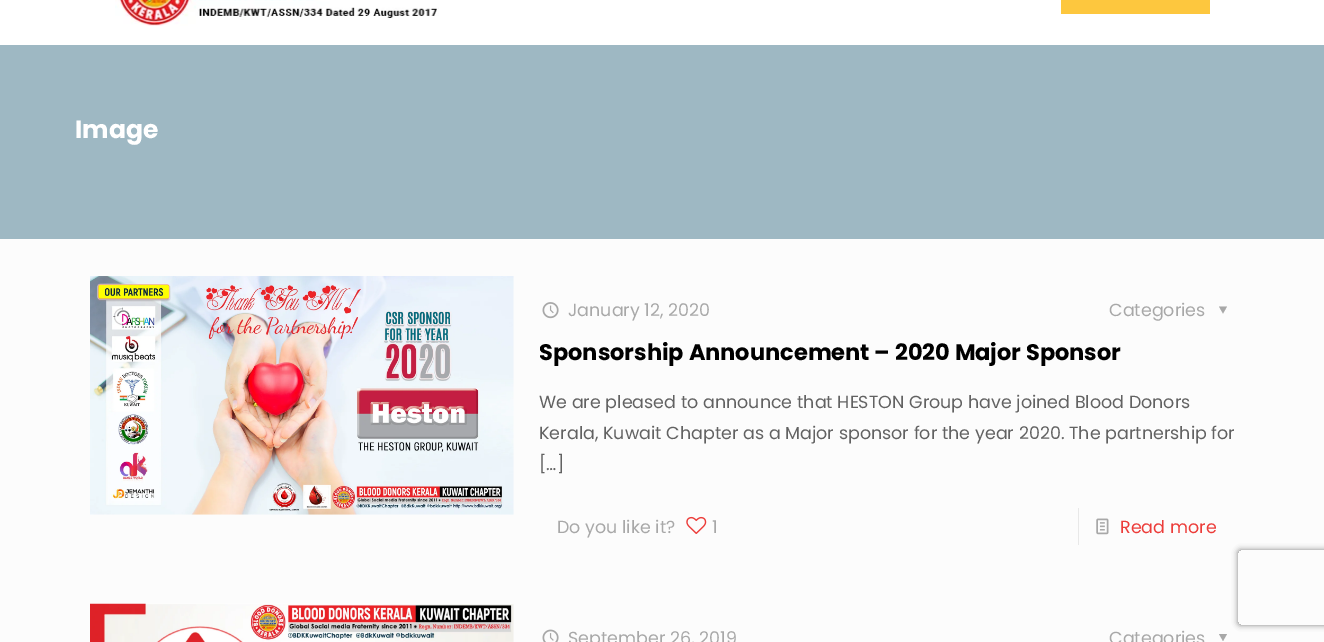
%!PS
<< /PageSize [1324 642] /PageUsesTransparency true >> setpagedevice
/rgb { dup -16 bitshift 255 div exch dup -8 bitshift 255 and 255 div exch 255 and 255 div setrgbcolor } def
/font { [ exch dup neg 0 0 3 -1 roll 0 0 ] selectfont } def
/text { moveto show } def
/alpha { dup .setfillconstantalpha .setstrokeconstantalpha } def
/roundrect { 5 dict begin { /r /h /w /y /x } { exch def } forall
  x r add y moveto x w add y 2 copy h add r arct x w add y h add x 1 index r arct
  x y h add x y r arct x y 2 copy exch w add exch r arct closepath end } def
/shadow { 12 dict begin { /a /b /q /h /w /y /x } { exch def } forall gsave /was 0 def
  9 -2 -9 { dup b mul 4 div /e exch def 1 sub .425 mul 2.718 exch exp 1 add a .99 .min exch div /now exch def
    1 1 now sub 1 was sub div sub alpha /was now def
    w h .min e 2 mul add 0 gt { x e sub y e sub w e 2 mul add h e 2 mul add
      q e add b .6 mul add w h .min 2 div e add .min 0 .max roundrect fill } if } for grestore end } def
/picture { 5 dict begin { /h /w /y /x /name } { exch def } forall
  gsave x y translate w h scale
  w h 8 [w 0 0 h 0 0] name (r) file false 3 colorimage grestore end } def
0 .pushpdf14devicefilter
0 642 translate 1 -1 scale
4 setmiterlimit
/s1 { /Poppins-Bold 25 font 16#FFFFFF rgb } def
/s2 { /Poppins-Regular 17.5 font 16#A8A8A8 rgb } def
/s3 { /Poppins-Bold 22.5 font 16#000000 rgb } def
/s4 { /Poppins-Regular 17.5 font 16#626262 rgb } def
/s5 { /Poppins-Regular 17.5 font 16#EC3D3A rgb } def
16#FCFCFC rgb
0 0 1324 642 rectfill
16#9EB8C3 rgb
0 45 1324 194 rectfill
16#FFFFFF rgb
0 0 1324 45 rectfill
(pic1.raw) 115 0 324 26 picture
16#FDC73E rgb
1061 0 149 14 rectfill
s1
(Image) 75 138 text
(pic2.raw) 90 276 424 239 picture
(pic3.raw) 542 302 17 17 picture
s2
(January 12, 2020) 568 316 text
(Categories) 1109 316 text
1227 306.5 moveto 1223 313.5 lineto 1219 306.5 lineto closepath fill
s3
(Sponsorship Announcement – 2020 Major Sponsor) 539 360 text
s4
(We are pleased to announce that HESTON Group have joined Blood Donors) 539 408 text
(Kerala, Kuwait Chapter as a Major sponsor for the year 2020. The partnership for) 539 439 text
([…]) 539 470 text
s2
(Do you like it?) 557 533 text
(pic4.raw) 686 516 21 18 picture
(1) 712 533 text
16#E8E8E8 rgb
1078 508 1 37 rectfill
(pic5.raw) 1096 518 13 17 picture
s5
(Read more) 1120 533 text
(pic6.raw) 90 603 424 39 picture
(pic7.raw) 542 629 17 13 picture
s2
(September 26, 2019) 568 644 text
(Categories) 1109 644 text
1227 634 moveto 1223 641 lineto 1219 634 lineto closepath fill
gsave
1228 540 moveto 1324 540 lineto 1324 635 lineto 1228 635 lineto closepath 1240.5 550 moveto 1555.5 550 lineto 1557 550 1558 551 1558 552.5 curveto 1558 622.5 lineto 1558 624 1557 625 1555.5 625 curveto 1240.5 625 lineto 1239 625 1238 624 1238 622.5 curveto 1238 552.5 lineto 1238 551 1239 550 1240.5 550 curveto closepath eoclip newpath
16#808080 rgb
1238 550 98 75 2.5 3 1 shadow
grestore
.poppdf14devicefilter showpage
